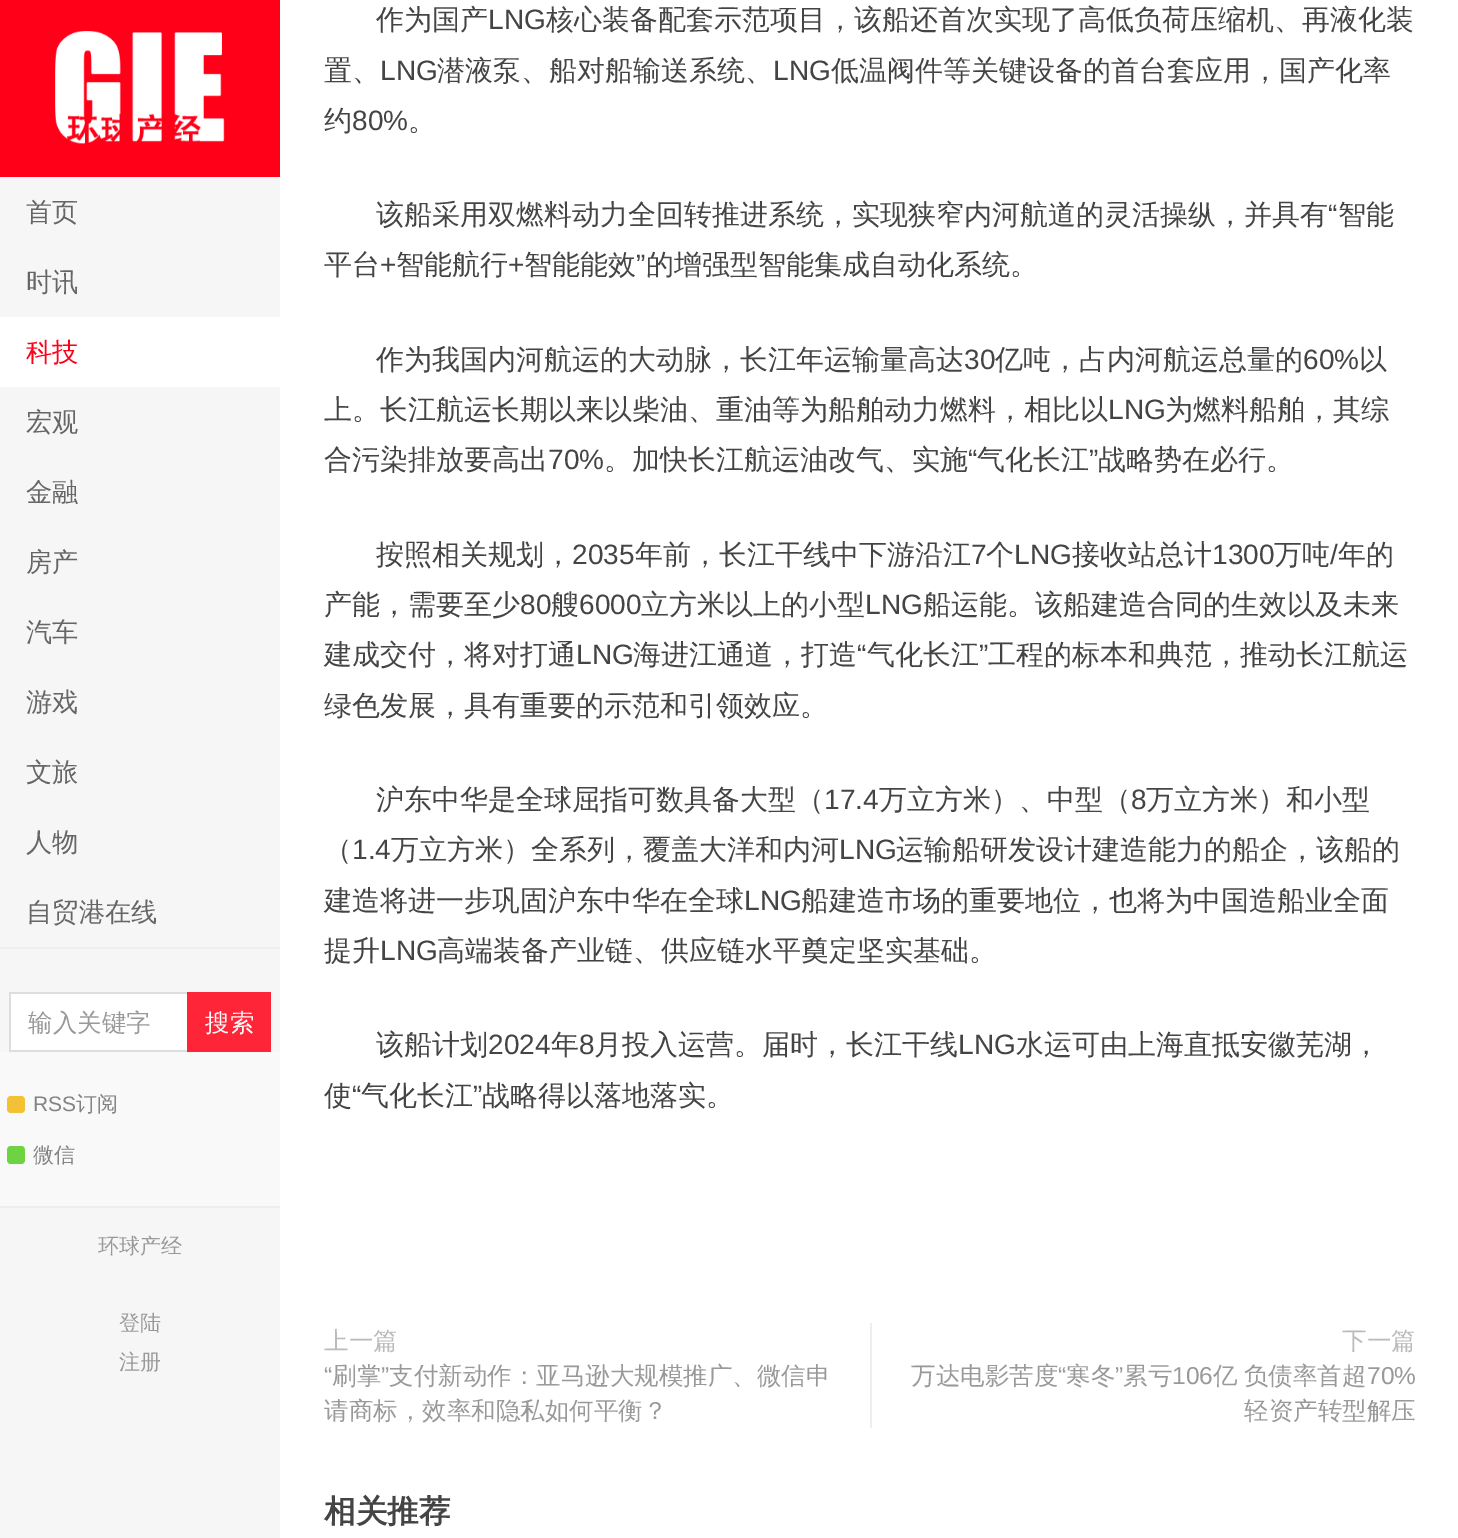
%!PS
<< /PageSize [1458 1538] >> setpagedevice
/rgb { dup -16 bitshift 255 div exch dup -8 bitshift 255 and 255 div exch 255 and 255 div setrgbcolor } def
/font { [ exch dup neg 0 0 3 -1 roll 0 0 ] selectfont } def
/text { moveto show } def
/roundrect { 5 dict begin { /r /h /w /y /x } { exch def } forall
  x r add y moveto x w add y 2 copy h add r arct x w add y h add x 1 index r arct
  x y h add x y r arct x y 2 copy exch w add exch r arct closepath end } def
/picture { 5 dict begin { /h /w /y /x /name } { exch def } forall
  gsave x y translate w h scale
  w h 8 [w 0 0 h 0 0] name (r) file false 3 colorimage grestore end } def
0 1538 translate 1 -1 scale
4 setmiterlimit
/s1 { /WenQuanYiZenHei-Medium 26.25 font 16#666666 rgb } def
/s2 { /WenQuanYiZenHei-Medium 26.25 font 16#FF0018 rgb } def
/s3 { /WenQuanYiZenHei-Medium 24.5 font 16#999999 rgb } def
/s4 { /WenQuanYiZenHei-Medium 24.5 font 16#FEFEFE rgb } def
/s5 { /LiberationSans-Regular 21 font 16#838383 rgb } def
/s6 { /WenQuanYiZenHei-Medium 21 font 16#838383 rgb } def
/s7 { /WenQuanYiZenHei-Medium 21 font 16#999999 rgb } def
/s8 { /WenQuanYiZenHei-Medium 28 font 16#444444 rgb } def
/s9 { /LiberationSans-Regular 28 font 16#444444 rgb } def
/s10 { /WenQuanYiZenHei-Medium 24.5 font 16#BBBBBB rgb } def
/s11 { /LiberationSans-Regular 24.5 font 16#999999 rgb } def
/s12 { /WenQuanYiZenHei-Bold 31.5 font 16#444444 rgb } def
16#FFFFFF rgb
0 0 1458 1538 rectfill
16#F6F6F6 rgb
0 177 280 1361 rectfill
16#FF0018 rgb
0 0 280 177 rectfill
(pic1.raw) 55 31 170 113 picture
16#EEEEEE rgb
0 947 280 2 rectfill
s1
(首页) 26 221 text
(时讯) 26 291 text
16#FFFFFF rgb
0 317 280 70 rectfill
s2
(科技) 26 361 text
s1
(宏观) 26 431 text
(金融) 26 501 text
(房产) 26 571 text
(汽车) 26 641 text
(游戏) 26 711 text
(文旅) 26 781 text
(人物) 26 851 text
(自贸港在线) 26 921 text
16#FFFFFF rgb
11 994 176 56 rectfill
16#DDDDDD rgb
9 992 178 2 rectfill
9 1050 178 2 rectfill
9 992 2 60 rectfill
s3
(输入关键字) 28 1031 text
16#FE2539 rgb
187 992 84 60 rectfill
s4
(搜索) 205 1031 text
16#F9F9F9 rgb
0 1052 280 154 rectfill
16#EEEEEE rgb
0 1206 280 2 rectfill
16#F3C136 rgb
7 1096 18 17 4 roundrect fill
s5
(RSS) 33 1111 text
s6
(订阅) 76 1111 text
16#6ED343 rgb
7 1146 18 18 4 roundrect fill
s6
(微信) 33 1162 text
s7
(环球产经) 98 1253 text
(登陆) 119 1330 text
(注册) 119 1369 text
s8
(作为国产) 376 29 text
s9
(LNG) 488 29 text
s8
(核心装备配套示范项目，该船还首次实现了高低负荷压缩机、再液化装) 546 29 text
(置、) 324 80 text
s9
(LNG) 380 80 text
s8
(潜液泵、船对船输送系统、) 437 80 text
s9
(LNG) 773 80 text
s8
(低温阀件等关键设备的首台套应用，国产化率) 831 80 text
(约) 324 130 text
s9
(80%) 352 130 text
s8
(。) 408 130 text
(该船采用双燃料动力全回转推进系统，实现狭窄内河航道的灵活操纵，并具有) 376 224 text
s9
(“) 1328 224 text
s8
(智能) 1338 224 text
(平台) 324 274 text
s9
(+) 380 274 text
s8
(智能航行) 396 274 text
s9
(+) 508 274 text
s8
(智能能效) 524 274 text
s9
(”) 636 274 text
s8
(的增强型智能集成自动化系统。) 646 274 text
(作为我国内河航运的大动脉，长江年运输量高达) 376 369 text
s9
(30) 964 369 text
s8
(亿吨，占内河航运总量的) 995 369 text
s9
(60%) 1303 369 text
s8
(以) 1359 369 text
(上。长江航运长期以来以柴油、重油等为船舶动力燃料，相比以) 324 419 text
s9
(LNG) 1108 419 text
s8
(为燃料船舶，其综) 1165 419 text
(合污染排放要高出) 324 469 text
s9
(70%) 548 469 text
s8
(。加快长江航运油改气、实施) 604 469 text
s9
(“) 968 469 text
s8
(气化长江) 977 469 text
s9
(”) 1089 469 text
s8
(战略势在必行。) 1098 469 text
(按照相关规划，) 376 564 text
s9
(2035) 572 564 text
s8
(年前，长江干线中下游沿江) 635 564 text
s9
(7) 971 564 text
s8
(个) 986 564 text
s9
(LNG) 1014 564 text
s8
(接收站总计) 1072 564 text
s9
(1300) 1212 564 text
s8
(万吨) 1274 564 text
s9
(/) 1330 564 text
s8
(年的) 1338 564 text
(产能，需要至少) 324 614 text
s9
(80) 520 614 text
s8
(艘) 551 614 text
s9
(6000) 579 614 text
s8
(立方米以上的小型) 641 614 text
s9
(LNG) 865 614 text
s8
(船运能。该船建造合同的生效以及未来) 923 614 text
(建成交付，将对打通) 324 664 text
s9
(LNG) 576 664 text
s8
(海进江通道，打造) 633 664 text
s9
(“) 857 664 text
s8
(气化长江) 867 664 text
s9
(”) 979 664 text
s8
(工程的标本和典范，推动长江航运) 988 664 text
(绿色发展，具有重要的示范和引领效应。) 324 715 text
(沪东中华是全球屈指可数具备大型（) 376 809 text
s9
(17.4) 824 809 text
s8
(万立方米）、中型（) 879 809 text
s9
(8) 1131 809 text
s8
(万立方米）和小型) 1146 809 text
(（) 324 859 text
s9
(1.4) 352 859 text
s8
(万立方米）全系列，覆盖大洋和内河) 391 859 text
s9
(LNG) 839 859 text
s8
(运输船研发设计建造能力的船企，该船的) 896 859 text
(建造将进一步巩固沪东中华在全球) 324 910 text
s9
(LNG) 744 910 text
s8
(船建造市场的重要地位，也将为中国造船业全面) 801 910 text
(提升) 324 960 text
s9
(LNG) 380 960 text
s8
(高端装备产业链、供应链水平奠定坚实基础。) 437 960 text
(该船计划) 376 1054 text
s9
(2024) 488 1054 text
s8
(年) 551 1054 text
s9
(8) 579 1054 text
s8
(月投入运营。届时，长江干线) 594 1054 text
s9
(LNG) 958 1054 text
s8
(水运可由上海直抵安徽芜湖，) 1016 1054 text
(使) 324 1105 text
s9
(“) 352 1105 text
s8
(气化长江) 361 1105 text
s9
(”) 473 1105 text
s8
(战略得以落地落实。) 482 1105 text
s10
(上一篇) 324 1349 text
16#EEEEEE rgb
870 1323 2 105 rectfill
s11
(“) 324 1384 text
s3
(刷掌) 332 1384 text
s11
(”) 381 1384 text
s3
(支付新动作：亚马逊大规模推广、微信申) 389 1384 text
(请商标，效率和隐私如何平衡？) 324 1419 text
s10
(下一篇) 1342 1349 text
s3
(万达电影苦度) 911 1384 text
s11
(“) 1058 1384 text
s3
(寒冬) 1066 1384 text
s11
(”) 1115 1384 text
s3
(累亏) 1123 1384 text
s11
(106) 1172 1384 text
/WenQuanYiZenHei-Medium 24.5 font
1213 1384 moveto -1 0 32 (亿 负债率首超) widthshow
s11
(70%) 1367 1384 text
s3
(轻资产转型解压) 1244 1419 text
s12
(相关推荐) 324 1522 text
showpage
